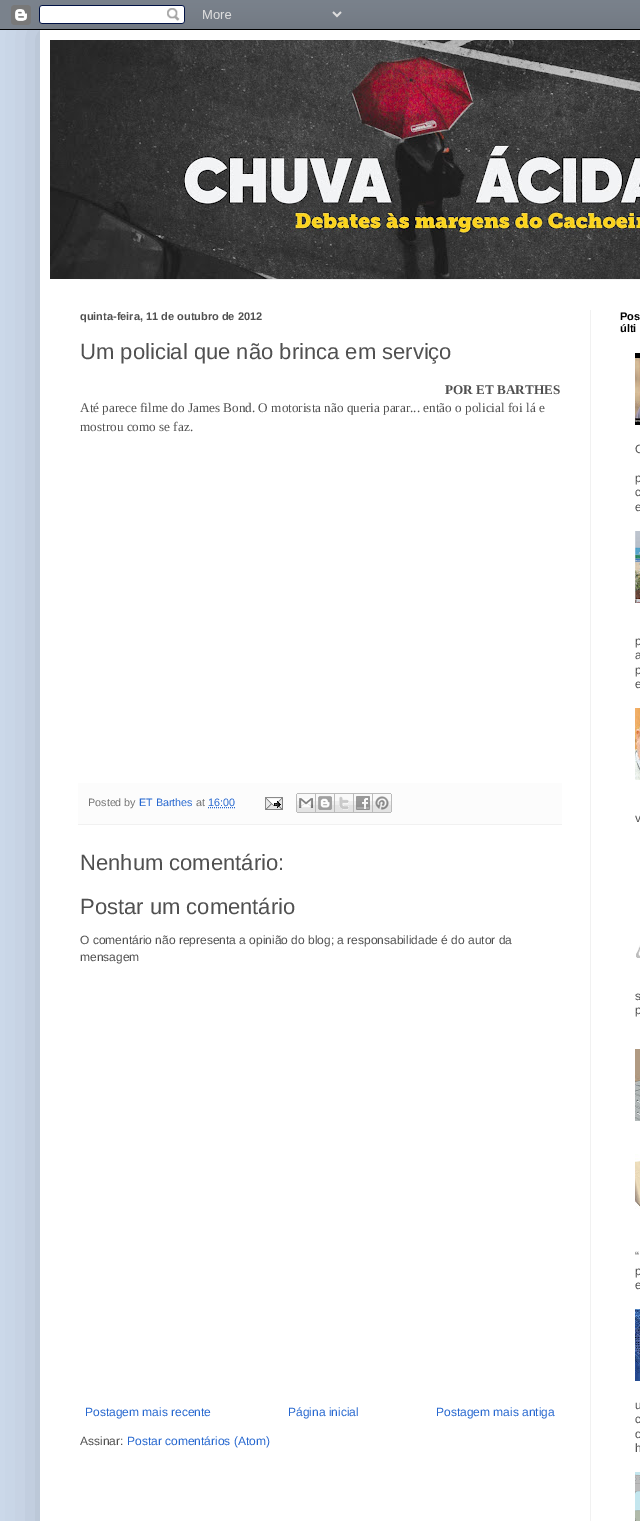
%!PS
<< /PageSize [640 1521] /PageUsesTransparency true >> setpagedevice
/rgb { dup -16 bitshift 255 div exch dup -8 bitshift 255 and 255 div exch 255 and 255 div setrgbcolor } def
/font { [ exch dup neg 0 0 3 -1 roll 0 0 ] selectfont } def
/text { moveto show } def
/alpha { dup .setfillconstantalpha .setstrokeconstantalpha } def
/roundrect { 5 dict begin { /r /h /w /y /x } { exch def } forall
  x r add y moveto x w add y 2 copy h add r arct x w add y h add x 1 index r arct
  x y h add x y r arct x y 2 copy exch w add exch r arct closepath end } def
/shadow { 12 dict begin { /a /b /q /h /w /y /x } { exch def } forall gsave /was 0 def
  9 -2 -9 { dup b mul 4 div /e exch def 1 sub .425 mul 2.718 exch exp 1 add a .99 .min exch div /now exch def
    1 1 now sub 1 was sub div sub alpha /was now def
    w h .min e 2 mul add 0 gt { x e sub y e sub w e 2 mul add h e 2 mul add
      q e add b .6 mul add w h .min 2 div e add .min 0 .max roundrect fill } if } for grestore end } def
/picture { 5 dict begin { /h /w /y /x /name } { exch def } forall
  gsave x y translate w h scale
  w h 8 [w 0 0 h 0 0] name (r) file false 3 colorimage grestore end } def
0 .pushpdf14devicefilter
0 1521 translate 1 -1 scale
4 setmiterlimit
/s1 { /LiberationSans-Bold 11 font 16#505050 rgb } def
/s2 { /LiberationSans-Regular 22 font 16#505050 rgb } def
/s3 { /LiberationSerif-Bold 13.2 font 16#505050 rgb } def
/s4 { /LiberationSerif-Regular 13.2 font 16#505050 rgb } def
/s5 { /LiberationSans-Regular 10.75 font 16#737373 rgb } def
/s6 { /LiberationSans-Regular 10.75 font 16#2667CF rgb } def
/s7 { /LiberationSans-Regular 12 font 16#505050 rgb } def
/s8 { /LiberationSans-Regular 12 font 16#2667CF rgb } def
/s9 { /LiberationSans-Bold 11 font 16#000000 rgb } def
16#CCD9EA rgb
0 0 640 1521 rectfill
16#000000 rgb
40 30 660 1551 0 20 0.15 shadow
(pic1.raw) 0 0 640 30 picture
16#FFFFFF rgb
40 30 600 1491 rectfill
(pic2.raw) 50 40 590 239 picture
16#F1F1F1 rgb
80 279 560 1 rectfill
590 310 1 1211 rectfill
s1
(quinta-feira, 11 de outubro de 2012) 80 320 text
s2
(Um policial que não brinca em serviço) 80 359 text
s3
(POR ET BARTHES) 445 394 text
s4
(Até parece filme do James Bond. O motorista não queria parar... então o policial foi lá e) 80 412 text
(mostrou como se faz.) 80 431 text
16#FCFCFC rgb
78 783 484 41 rectfill
16#F1F1F1 rgb
78 824 484 1 rectfill
s5
(Posted by) 88 806 text
s6
(ET Barthes) 139 806 text
s5
(at) 196 806 text
s6
(16:00) 208 806 text
[1 1] 0 setdash
208 807.5 moveto 235 807.5 lineto stroke
(pic3.raw) 265 797 18 13 picture
(pic4.raw) 296 793 20 20 picture
(pic5.raw) 316 793 19 20 picture
(pic6.raw) 335 793 19 20 picture
(pic7.raw) 354 793 19 20 picture
(pic8.raw) 373 793 19 20 picture
s2
(Nenhum comentário:) 80 870 text
(Postar um comentário) 80 914 text
s7
(O comentário não representa a opinião do blog; a responsabilidade é do autor da) 80 944 text
(mensagem) 80 961 text
s8
(Postagem mais recente) 85 1416 text
(Página inicial) 288 1416 text
(Postagem mais antiga) 436 1416 text
s7
(Assinar:) 80 1445 text
s8
(Postar comentários \(Atom\)) 127 1445 text
s9
(Pos) 620 320 text
(últi) 620 332 text
(pic9.raw) 635 353 5 72 picture
s7
(C) 635 453 text
(p) 635 482 text
(c) 635 496 text
(e) 635 511 text
(pic10.raw) 635 531 5 72 picture
(p) 635 645 text
(a) 635 659 text
(p) 635 674 text
(e) 635 688 text
(pic11.raw) 635 708 5 72 picture
(v) 635 822 text
(pic12.raw) 636 945 4 13 picture
(s) 635 1000 text
(p) 635 1014 text
(pic13.raw) 635 1049 5 72 picture
(pic14.raw) 635 1154 5 55 picture
(“) 635 1260 text
(p) 635 1275 text
(e) 635 1289 text
(pic15.raw) 635 1309 5 72 picture
(u) 635 1409 text
(c) 635 1423 text
(o) 635 1438 text
(h) 635 1452 text
(pic16.raw) 635 1472 5 49 picture
.poppdf14devicefilter showpage
